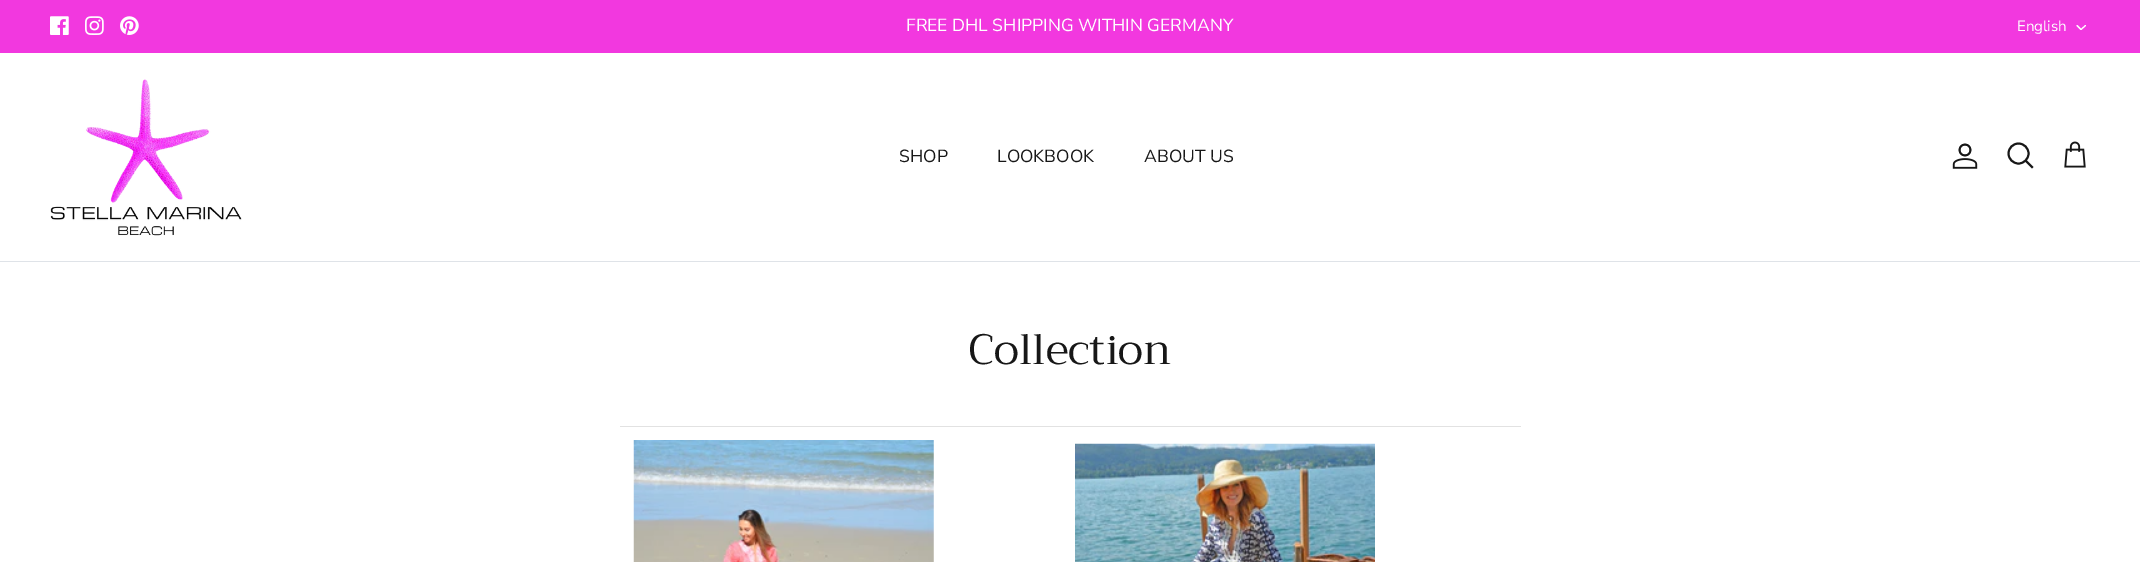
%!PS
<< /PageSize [2140 562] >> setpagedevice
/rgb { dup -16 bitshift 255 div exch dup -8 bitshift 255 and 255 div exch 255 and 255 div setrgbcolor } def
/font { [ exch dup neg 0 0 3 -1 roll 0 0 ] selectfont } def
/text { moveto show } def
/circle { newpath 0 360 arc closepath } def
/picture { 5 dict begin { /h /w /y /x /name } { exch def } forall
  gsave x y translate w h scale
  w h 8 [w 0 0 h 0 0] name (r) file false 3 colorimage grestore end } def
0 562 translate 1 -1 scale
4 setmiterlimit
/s1 { /NunitoSans-Regular 17.5 font 16#FFFFFF rgb } def
/s2 { /NunitoSans-Regular 15 font 16#FFFFFF rgb } def
/s3 { /NunitoSans-Regular 17.5 font 16#171717 rgb } def
/s4 { /Trirong-Regular 42.5 font 16#171717 rgb } def
16#FFFFFF rgb
0 0 2140 562 rectfill
16#F238DF rgb
0 0 2140 53 rectfill
(pic1.raw) 50 16 19 19 picture
(pic2.raw) 85 16 19 19 picture
(pic3.raw) 120 16 19 19 picture
s1
(FREE DHL SHIPPING WITHIN GERMANY) 906 31 text
s2
(English) 2017 31 text
1.1 setlinewidth
1 setlinecap
1 setlinejoin
2077 25.5 moveto 2081 29.5 lineto 2085.5 25.5 lineto stroke
16#DFE3E8 rgb
0 261 2140 1 rectfill
(pic4.raw) 50 79 192 157 picture
s3
(SHOP) 899 162 text
(LOOKBOOK) 997 162 text
(ABOUT US) 1144 162 text
(pic5.raw) 1952 143 26 26 picture
1.9 setlinewidth
0 setlinecap
0 setlinejoin
2018.5 153.5 10 circle stroke
2 setlinecap
2026 161 moveto 2032 167 lineto stroke
(pic6.raw) 2064 141 22 27 picture
s4
(Collection) 968 364 text
16#E2E2E2 rgb
620 426 901 1 rectfill
(pic7.raw) 1075 443 300 119 picture
(pic8.raw) 633 440 301 122 picture
showpage
